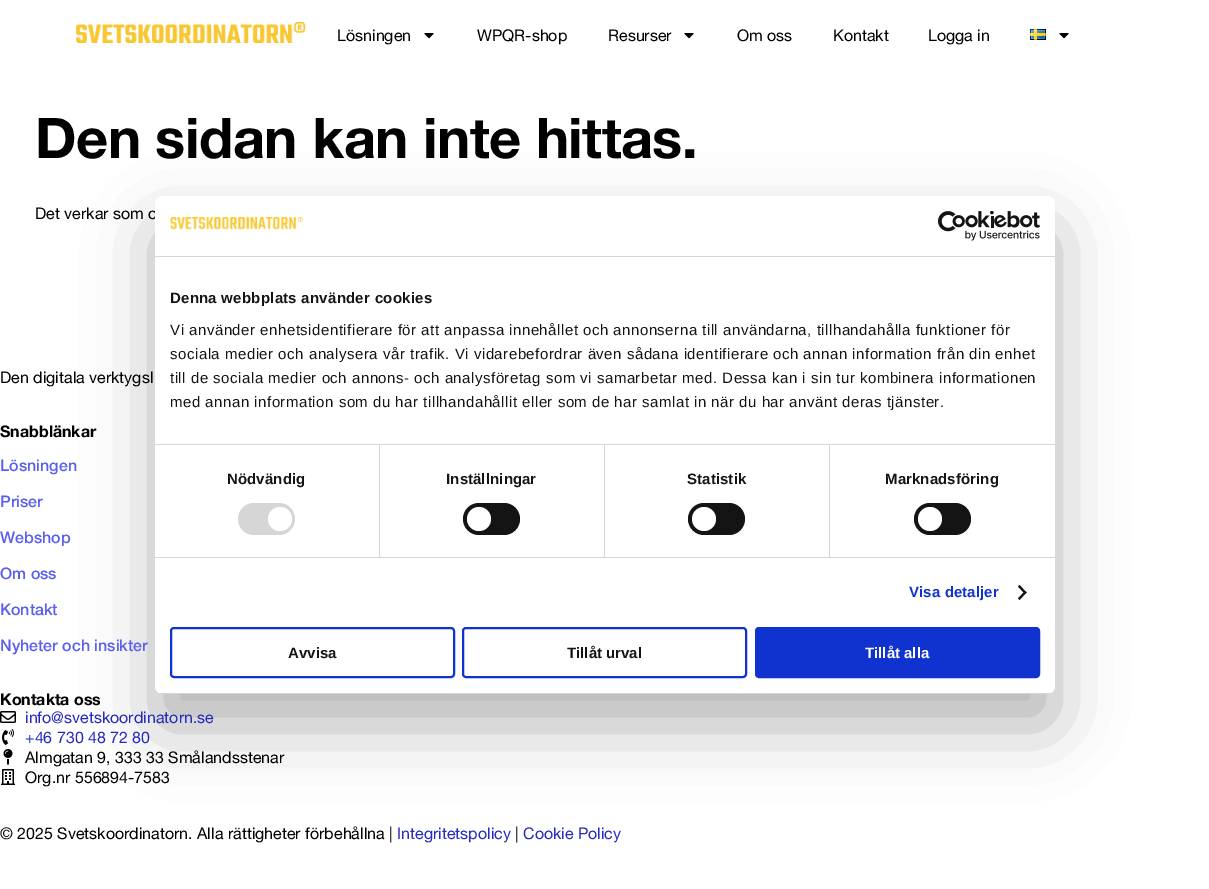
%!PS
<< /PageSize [1209 889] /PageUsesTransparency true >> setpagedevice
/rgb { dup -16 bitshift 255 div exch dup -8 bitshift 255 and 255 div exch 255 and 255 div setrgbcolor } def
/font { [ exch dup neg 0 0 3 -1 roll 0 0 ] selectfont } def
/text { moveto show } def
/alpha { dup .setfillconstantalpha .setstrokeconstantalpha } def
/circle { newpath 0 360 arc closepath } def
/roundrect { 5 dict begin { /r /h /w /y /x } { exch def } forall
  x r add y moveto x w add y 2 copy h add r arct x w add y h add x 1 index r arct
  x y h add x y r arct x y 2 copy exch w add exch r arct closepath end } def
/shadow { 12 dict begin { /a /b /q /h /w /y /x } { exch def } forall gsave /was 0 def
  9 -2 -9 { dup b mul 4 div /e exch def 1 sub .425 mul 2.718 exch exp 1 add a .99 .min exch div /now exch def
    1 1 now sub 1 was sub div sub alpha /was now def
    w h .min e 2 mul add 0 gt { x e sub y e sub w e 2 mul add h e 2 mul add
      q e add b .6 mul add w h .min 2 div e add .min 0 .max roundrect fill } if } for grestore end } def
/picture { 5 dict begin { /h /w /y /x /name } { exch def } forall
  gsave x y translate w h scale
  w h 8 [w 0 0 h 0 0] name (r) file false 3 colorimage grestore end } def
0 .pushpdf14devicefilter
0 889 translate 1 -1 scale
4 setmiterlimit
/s1 { /HelveticaNeue-Regular 16 font 16#000000 rgb } def
/s2 { /LiberationSans-Bold 15 font 16#141414 rgb } def
/s3 { /LiberationSans-Bold 15 font 16#FFFFFF rgb } def
/s4 { /HelveticaNeue-Bold 16 font 16#000000 rgb } def
/s5 { /HelveticaNeue-Medium 16 font 16#5B5FED rgb } def
/s6 { /HelveticaNeue-Regular 16 font 16#262ABD rgb } def
16#FFFFFF rgb
0 0 1209 889 rectfill
(pic1.raw) 76 22 230 21 picture
s1
(Lösningen) 337 41 text
(pic2.raw) 424 33 10 6 picture
(WPQR-shop) 477 41 text
(Resurser) 608 41 text
(pic2.raw) 684 33 10 6 picture
(Om oss) 737 41 text
(Kontakt) 833 41 text
(Logga in) 928 41 text
(pic3.raw) 1030 29 16 11 picture
(pic2.raw) 1059 33 10 6 picture
/HelveticaNeue-Bold 56 font
35 158 moveto -0.5 0 (Den sidan kan inte hittas.) ashow
s1
(Det verkar som o) 35 219 text
155 228 900 498 8 34 0.3 shadow
16#FFFFFF rgb
155 196 900 498 8 roundrect fill
16#D6D6D6 rgb
155 256 900 1 rectfill
(pic4.raw) 170 216 133 14 picture
(pic5.raw) 938 211 102 30 picture
155 444 900 1 rectfill
/LiberationSans-Bold 15 font
16#141414 rgb
170 303 moveto 0.25 0 (Denna webbplats använder cookies) ashow
/LiberationSans-Regular 15 font
170 335 moveto 0.5 0 (Vi använder enhetsidentifierare för att anpassa innehållet och annonserna till användarna, tillhandahålla funktioner för) ashow
170 359 moveto 0.5 0 (sociala medier och analysera vår trafik. Vi vidarebefordrar även sådana identifierare och annan information från din enhet) ashow
170 383 moveto 0.5 0 (till de sociala medier och annons- och analysföretag som vi samarbetar med. Dessa kan i sin tur kombinera informationen) ashow
170 407 moveto 0.5 0 (med annan information som du har tillhandahållit eller som de har samlat in när du har använt deras tjänster.) ashow
16#D6D6D6 rgb
155 557 900 1 rectfill
379 445 1 112 rectfill
/LiberationSans-Bold 15 font
16#141414 rgb
227 484 moveto 0.1 0 (Nödvändig) ashow
16#D6D6D6 rgb
238 503 57 32 16 roundrect fill
16#FFFFFF rgb
280 519 12 circle fill
16#D6D6D6 rgb
604 445 1 112 rectfill
16#141414 rgb
446 484 moveto 0.1 0 (Inställningar) ashow
463 503 57 32 16 roundrect fill
16#FFFFFF rgb
479 519 12 circle fill
16#D6D6D6 rgb
829 445 1 112 rectfill
16#141414 rgb
687 484 moveto 0.1 0 (Statistik) ashow
688 503 57 32 16 roundrect fill
16#FFFFFF rgb
704 519 12 circle fill
16#141414 rgb
885 484 moveto 0.1 0 (Marknadsföring) ashow
914 503 57 32 16 roundrect fill
16#FFFFFF rgb
930 519 12 circle fill
16#1032CF rgb
909 597 moveto 0.1 0 (Visa detaljer) ashow
16#141414 rgb
1019.5 585 moveto 1026.5 592.5 lineto 1025 594 lineto 1018 586.5 lineto closepath fill
1025 591 moveto 1026.5 592.5 lineto 1019.5 600 lineto 1018 598.5 lineto closepath fill
gsave
155 196 900 498 8 roundrect clip newpath
16#D6D6D6 rgb
155 693 900 1 rectfill
grestore
16#1032CF rgb
2 setlinewidth
171 628 283 49 3 roundrect stroke
s2
(Avvisa) 288 658 text
16#1032CF rgb
463 628 283 49 3 roundrect stroke
s2
(Tillåt urval) 567 658 text
16#1032CF rgb
756 628 283 49 3 roundrect gsave fill grestore
stroke
s3
(Tillåt alla) 865 658 text
s1
(Den digitala verktygsl) 0 383 text
s4
(Snabblänkar) 0 437 text
s5
(Lösningen) 0 471 text
(Priser) 0 507 text
(Webshop) 0 543 text
(Om oss) 0 579 text
(Kontakt) 0 615 text
(Nyheter och insikter) 0 651 text
s4
(Kontakta oss) 0 705 text
(pic6.raw) 0 711 16 12 picture
s6
(info@svetskoordinatorn.se) 25 723 text
(pic7.raw) 2 729 12 16 picture
(+46 730 48 72 80) 25 743 text
(pic8.raw) 3 749 10 16 picture
s1
(Almgatan 9, 333 33 Smålandsstenar) 25 763 text
(pic9.raw) 1 769 14 16 picture
(Org.nr 556894-7583) 25 783 text
(© 2025 Svetskoordinatorn. Alla rättigheter förbehållna |) 0 839 text
s6
(Integritetspolicy) 397 839 text
s1
(|) 515 839 text
s6
(Cookie Policy) 523 839 text
.poppdf14devicefilter showpage
